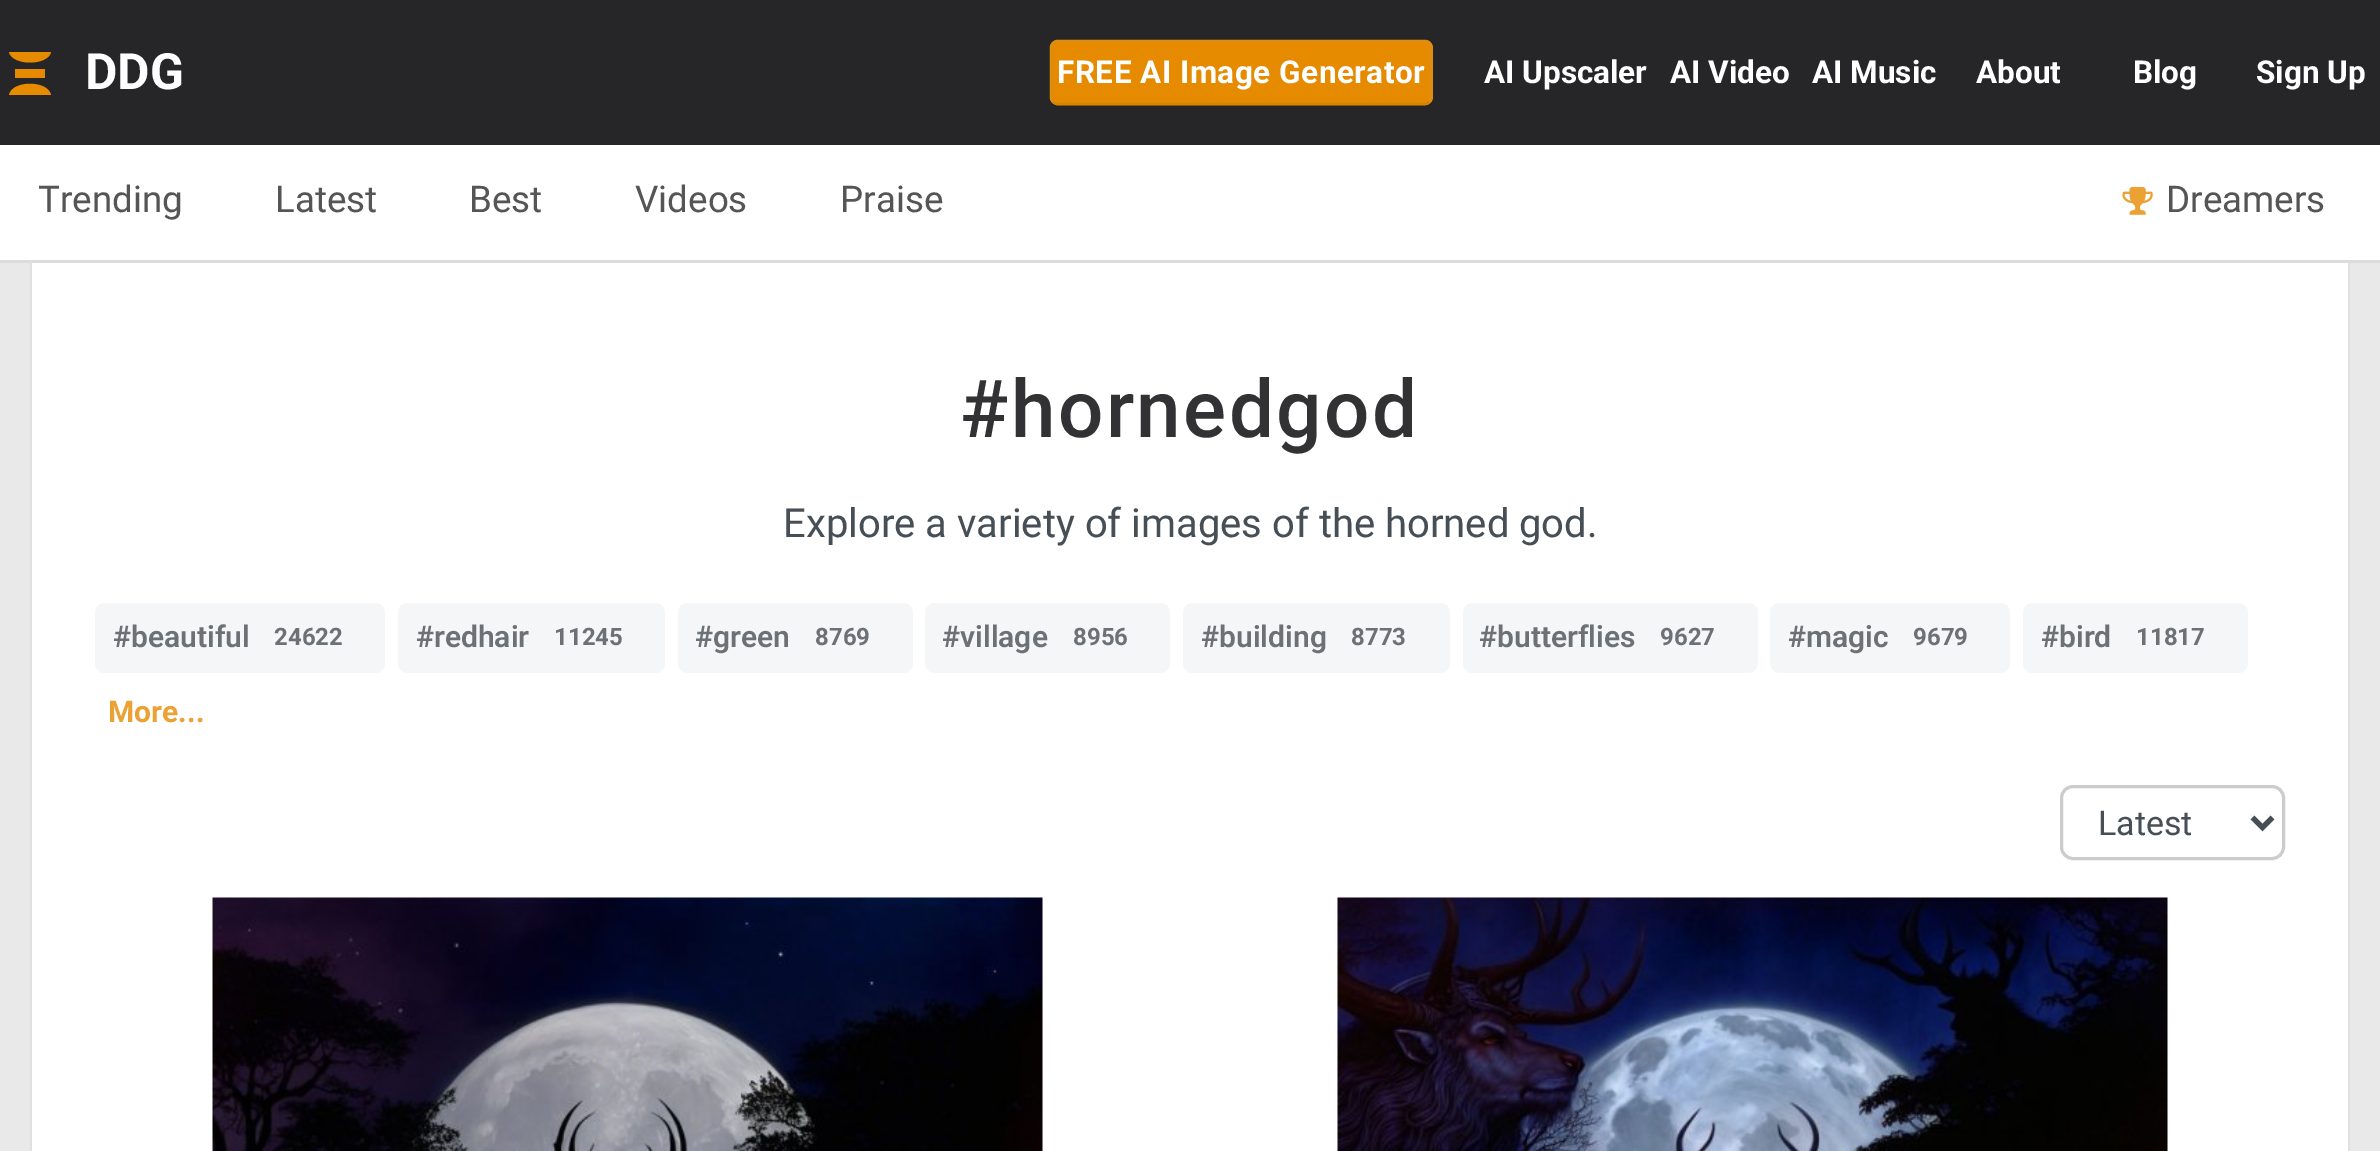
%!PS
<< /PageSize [2380 1151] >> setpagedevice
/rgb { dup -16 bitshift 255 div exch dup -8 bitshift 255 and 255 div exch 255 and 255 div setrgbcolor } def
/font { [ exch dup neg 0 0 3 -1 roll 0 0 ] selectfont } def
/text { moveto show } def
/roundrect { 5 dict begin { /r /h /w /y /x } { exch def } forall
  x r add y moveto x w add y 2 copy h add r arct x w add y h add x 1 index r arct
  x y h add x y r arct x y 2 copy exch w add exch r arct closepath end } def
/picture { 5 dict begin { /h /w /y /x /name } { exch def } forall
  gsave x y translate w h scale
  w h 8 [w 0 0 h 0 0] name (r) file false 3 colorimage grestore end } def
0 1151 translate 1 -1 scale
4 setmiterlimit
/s1 { /Roboto-Bold 50 font 16#FFFFFF rgb } def
/s2 { /Roboto-Bold 31.5 font 16#FFFFFF rgb } def
/s3 { /Roboto-Regular 36.75 font 16#555555 rgb } def
/s4 { /Roboto-Regular 40 font 16#474F56 rgb } def
/s5 { /Roboto-SemiBold 30 font 16#6C7176 rgb } def
/s6 { /Roboto-Bold 24 font 16#6C7176 rgb } def
/s7 { /Roboto-Bold 30 font 16#EBA133 rgb } def
/s8 { /Roboto-Regular 34 font 16#474F56 rgb } def
16#E9E9E9 rgb
0 0 2380 1151 rectfill
16#262628 rgb
0 0 2380 145 rectfill
s1
(DDG) 85 89 text
16#E68A00 rgb
9 52 moveto 12 66 48 66 51 52 curveto closepath 15 69 moveto 15 78 lineto 45 78 lineto 45 69 lineto 15 69 lineto 9 95 moveto 51 95 lineto 48 80 12 80 9 95 curveto closepath fill
1050 40 383 65 8 roundrect fill
16#D68400 rgb
2.5 setlinewidth
1429.5 102 moveto 1428 103 1426.5 104 1425 104 curveto 1057.5 104 lineto 1056 104 1054.5 103 1053 102 curveto stroke
16#DD8E11 rgb
1053 102 moveto 1052 100.5 1051 99 1051 97.5 curveto 1051 47.5 lineto 1051 46 1052 44.5 1053 43 curveto 1054.5 42 1056 41 1057.5 41 curveto 1425 41 lineto 1426.5 41 1428 42 1429.5 43 curveto 1430.5 44.5 1431 46 1431 47.5 curveto 1431 97.5 lineto 1431 99 1430.5 100.5 1429.5 102 curveto stroke
/Roboto-Bold 31.5 font
16#FFFFFF rgb
1057 83 moveto 0.5 0 (FREE AI Image Generator) ashow
(AI Upscaler) 1484 83 text
(AI Video) 1670 83 text
(AI Music) 1812 83 text
(About) 1976 83 text
(Blog) 2133 83 text
(Sign Up) 2256 83 text
0 145 2380 115 rectfill
16#DCDCDC rgb
0 260 2380 3 rectfill
s3
(Trending) 38 212 text
(Latest) 275 212 text
(Best) 469 212 text
(Videos) 635 212 text
(Praise) 840 212 text
(pic1.raw) 2122 186 31 29 picture
(Dreamers) 2166 212 text
16#FFFFFF rgb
32 263 2316 888 rectfill
16#DFE0E4 rgb
2350 262 moveto 2348 262 lineto 2348 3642 lineto 2348 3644 2347 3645 2346 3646 curveto 2348 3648 lineto 2349 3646 2350 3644 2350 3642 curveto closepath fill
30 262 moveto 30 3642 lineto 30 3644 31 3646 32 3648 curveto 34 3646 lineto 33 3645 32 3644 32 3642 curveto 32 262 lineto closepath fill
/Roboto-Medium 80 font
16#323235 rgb
960 437 moveto 2.5 0 (#hornedgod) ashow
s4
(Explore a variety of images of the horned god.) 783 537 text
16#F5F6F8 rgb
95 603 290 70 10 roundrect fill
s5
(#beautiful) 113 647 text
s6
(24622) 274 645 text
16#F5F6F8 rgb
398 603 267 70 10 roundrect fill
s5
(#redhair) 416 647 text
s6
(11245) 554 645 text
16#F5F6F8 rgb
678 603 235 70 10 roundrect fill
s5
(#green) 695 647 text
s6
(8769) 815 645 text
16#F5F6F8 rgb
925 603 245 70 10 roundrect fill
s5
(#village) 942 647 text
s6
(8956) 1073 645 text
16#F5F6F8 rgb
1183 603 267 70 10 roundrect fill
s5
(#building) 1201 647 text
s6
(8773) 1351 645 text
16#F5F6F8 rgb
1463 603 295 70 10 roundrect fill
s5
(#butterflies) 1479 647 text
s6
(9627) 1660 645 text
16#F5F6F8 rgb
1770 603 240 70 10 roundrect fill
s5
(#magic) 1788 647 text
s6
(9679) 1913 645 text
16#F5F6F8 rgb
2023 603 225 70 10 roundrect fill
s5
(#bird) 2041 647 text
s6
(11817) 2136 645 text
s7
(More...) 108 722 text
16#CCCCCC rgb
3 setlinewidth
2061.5 786.5 222 72 11.5 roundrect stroke
16#474F56 rgb
5 setlinewidth
2252.5 817.5 moveto 2262.5 827.5 lineto 2272.5 817.5 lineto stroke
s8
(Latest) 2098 835 text
16#FAFAFA rgb
1042 898 1 253 rectfill
(pic2.raw) 212 897 831 254 picture
2167 898 1 253 rectfill
(pic3.raw) 1337 897 831 254 picture
showpage
